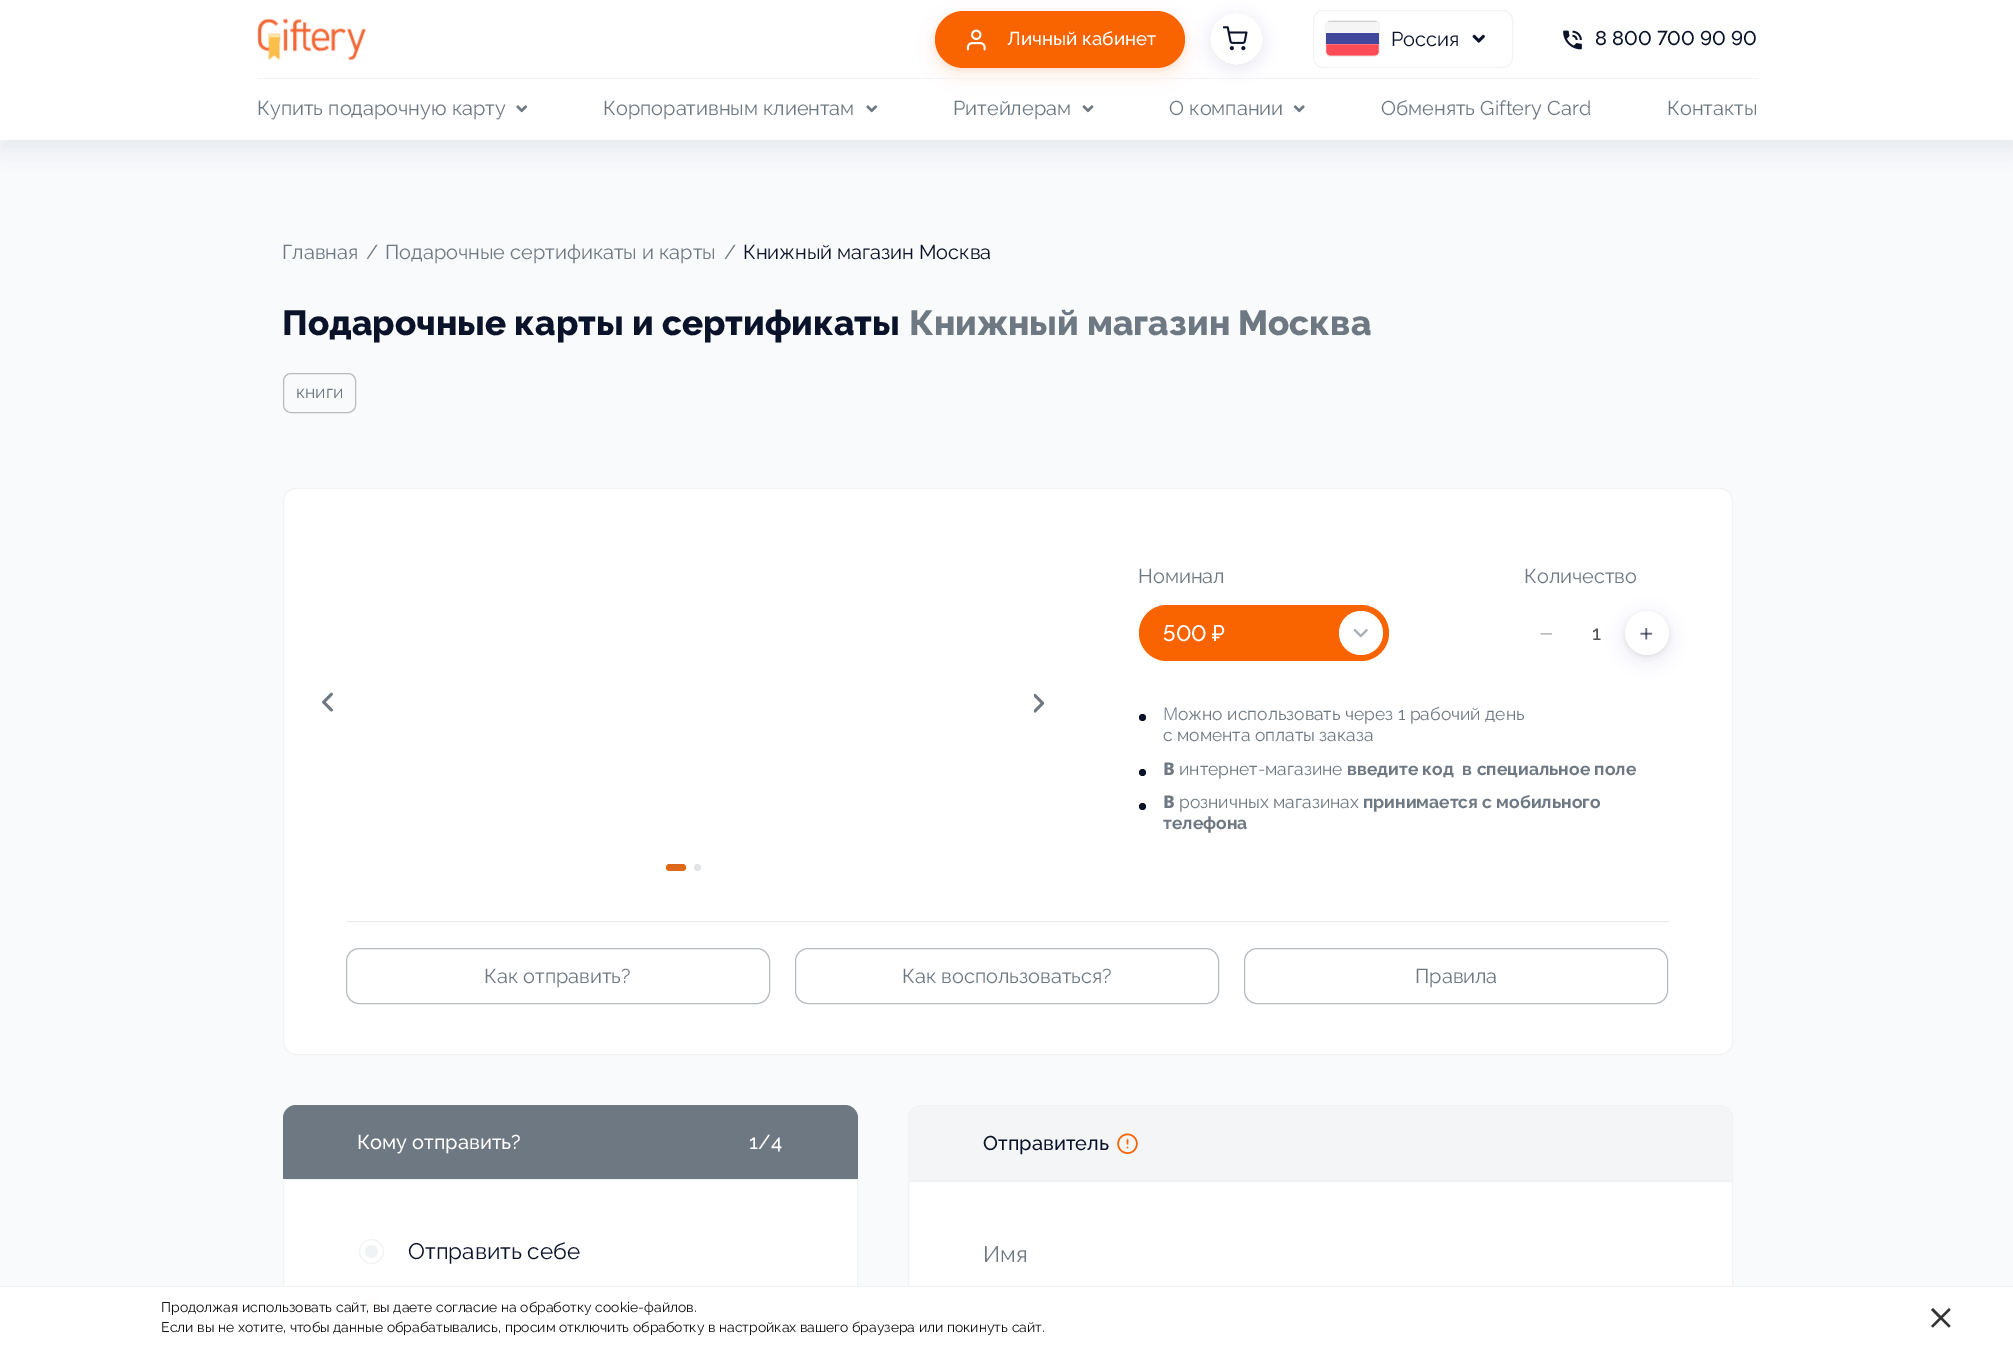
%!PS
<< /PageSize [2013 1346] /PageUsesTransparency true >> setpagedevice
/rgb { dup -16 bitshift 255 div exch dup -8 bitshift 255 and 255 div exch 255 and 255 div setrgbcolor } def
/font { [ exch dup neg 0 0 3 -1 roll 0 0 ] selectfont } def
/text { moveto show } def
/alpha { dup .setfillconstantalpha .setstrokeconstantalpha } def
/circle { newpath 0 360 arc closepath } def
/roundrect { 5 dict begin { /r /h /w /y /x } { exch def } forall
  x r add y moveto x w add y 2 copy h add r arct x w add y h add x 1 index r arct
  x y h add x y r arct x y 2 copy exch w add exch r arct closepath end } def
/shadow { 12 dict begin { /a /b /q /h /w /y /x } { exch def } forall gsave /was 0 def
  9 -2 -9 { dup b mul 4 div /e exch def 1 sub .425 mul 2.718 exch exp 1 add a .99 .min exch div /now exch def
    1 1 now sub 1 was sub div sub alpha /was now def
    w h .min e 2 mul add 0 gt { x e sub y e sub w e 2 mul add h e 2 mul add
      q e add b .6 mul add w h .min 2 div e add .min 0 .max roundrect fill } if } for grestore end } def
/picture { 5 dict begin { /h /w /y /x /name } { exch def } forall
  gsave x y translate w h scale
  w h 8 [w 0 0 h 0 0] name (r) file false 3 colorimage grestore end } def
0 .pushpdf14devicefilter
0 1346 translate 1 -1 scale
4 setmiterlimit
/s1 { /Raleway-Medium 18.75 font 16#FFFFFF rgb } def
/s2 { /Raleway-Regular 20 font 16#0B132A rgb } def
/s3 { /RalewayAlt-Medium 20 font 16#0B132A rgb } def
/s4 { /Raleway-Regular 20 font 16#6E7882 rgb } def
/s5 { /Raleway-ExtraBold 35 font 16#0B132A rgb } def
/s6 { /Raleway-ExtraBold 35 font 16#6E7882 rgb } def
/s7 { /Raleway-Regular 17.5 font 16#6E7882 rgb } def
/s8 { /RalewayAlt-Medium 22.5 font 16#FFFFFF rgb } def
/s9 { /Raleway-Medium 20 font 16#545454 rgb } def
/s10 { /NotoSans-Light 17.5 font 16#6E7882 rgb } def
/s11 { /NotoSans-ExtraBold 17.5 font 16#6E7882 rgb } def
/s12 { /Raleway-Bold 17.5 font 16#6E7882 rgb } def
/s13 { /Raleway-Medium 20 font 16#FFFFFF rgb } def
/s14 { /Raleway-Regular 22.5 font 16#0B132A rgb } def
/s15 { /Raleway-Medium 20 font 16#0B132A rgb } def
/s16 { /Raleway-Regular 22.5 font 16#6E7882 rgb } def
/s17 { /Raleway-Regular 14 font 16#111111 rgb } def
16#F9FAFB rgb
0 0 2013 1346 rectfill
16#6E7881 rgb
0 10 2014 140 0 10 0.12 shadow
16#FFFFFF rgb
0 0 2013 140 rectfill
(pic1.raw) 257 18 110 43 picture
16#FA6400 rgb
935 19 250 56 28 9 0.12 shadow
935 13 250 56 28 2 0.08 shadow
935 11 250 57 28.5 roundrect fill
(pic2.raw) 966 29 20 22 picture
s1
(Личный кабинет) 1007 45 text
16#F3F3F3 rgb
258 78 1500 1 rectfill
gsave
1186 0 moveto 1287 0 lineto 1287 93 lineto 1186 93 lineto closepath 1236 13 moveto 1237 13 lineto 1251.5 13 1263 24.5 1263 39 curveto 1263 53.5 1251.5 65 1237 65 curveto 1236 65 lineto 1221.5 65 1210 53.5 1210 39 curveto 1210 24.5 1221.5 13 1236 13 curveto closepath eoclip newpath
16#6E7881 rgb
1210 16 53 53 26.5 7.5 0.14 shadow
grestore
(pic3.raw) 1223 26 25 25 picture
16#F1F2F3 rgb
1313.5 10.5 199 57 9.5 roundrect stroke
16#000000 rgb
1326 21 53 35 4 0.5 0.2 shadow
(pic4.raw) 1326 22 53 34 picture
s2
(Россия) 1391 46 text
(pic5.raw) 1472 34 13 9 picture
(pic6.raw) 1563 30 19 20 picture
s3
(8 800 700 90 90) 1595 45 text
s4
(Купить подарочную карту) 257 115 text
(pic7.raw) 516 105 12 8 picture
(Корпоративным клиентам) 603 115 text
(pic7.raw) 866 105 12 8 picture
(Ритейлерам) 953 115 text
(pic8.raw) 1082 105 12 8 picture
(О компании) 1169 115 text
(pic9.raw) 1293 105 12 8 picture
(Обменять Giftery Card) 1381 115 text
(Контакты) 1667 115 text
(Главная) 282 259 text
(/) 366 259 text
(Подарочные сертификаты и карты) 385 259 text
(/) 724 259 text
s2
(Книжный магазин Москва) 743 259 text
s5
(Подарочные карты и сертификаты) 282 335 text
s6
(Книжный магазин Москва) 909 335 text
16#B6BBC0 rgb
283.5 373.5 72 39 7.5 roundrect stroke
s7
(книги) 296 398 text
16#FFFFFF rgb
283.5 488.5 1449 566 12.5 roundrect gsave fill grestore
16#F1F2F3 rgb
stroke
16#E9EBEC rgb
346 921 1323 1 rectfill
(pic10.raw) 322 692 11 20 picture
(pic11.raw) 1034 693 11 20 picture
16#FA6400 rgb
666 864 20 7 3.5 roundrect fill
0.2 alpha
16#6E7881 rgb
666 864 20 7 3.5 roundrect fill
1 alpha
16#E2E4E6 rgb
697.5 867.5 3.5 circle fill
s4
(Номинал) 1138 583 text
16#FA6400 rgb
1139 605 250 56 28 roundrect fill
s8
(500 ₽) 1163 641 text
1361 633 22 circle fill
(pic12.raw) 1353 629 15 9 picture
s4
(Количество) 1524 583 text
(pic13.raw) 1540 633 13 2 picture
s9
(1) 1592 640 text
16#6E7881 rgb
1625 616 44 44 22 9 0.12 shadow
16#000000 rgb
1625 613 44 43 21.5 2 0.08 shadow
16#FFFFFF rgb
1647 633 22 circle fill
(pic14.raw) 1640 628 13 12 picture
16#0B132A rgb
1142.5 717.5 3.5 circle fill
s10
(М) 1163 720 text
s7
(ожно использовать через 1 рабочий день) 1178 720 text
(с момента оплаты заказа) 1163 741 text
16#0B132A rgb
1142.5 772.5 3.5 circle fill
s11
(В) 1163 775 text
s7
(интернет-магазине) 1179 775 text
s12
(введите код  в специальное поле) 1347 775 text
16#0B132A rgb
1142.5 806.5 3.5 circle fill
s11
(В) 1163 808 text
s7
(розничных магазинах) 1179 808 text
s12
(принимается с мобильного) 1363 808 text
(телефона) 1163 829 text
16#B6BBC0 rgb
346.5 948.5 423 55 12.5 roundrect stroke
s4
(Как отправить?) 484 983 text
16#B6BBC0 rgb
795.5 948.5 423 55 12.5 roundrect stroke
s4
(Как воспользоваться?) 902 983 text
16#B6BBC0 rgb
1244.5 948.5 423 55 12.5 roundrect stroke
s4
(Правила) 1415 983 text
296 1105 moveto 845 1105 lineto 852 1105 858 1111 858 1118 curveto 858 1179 lineto 283 1179 lineto 283 1118 lineto 283 1111 289 1105 296 1105 curveto closepath fill
s13
(Кому отправить?) 357 1149 text
(1/4) 749 1149 text
283.5 1179.5 moveto 857.5 1179.5 lineto 857.5 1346.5 lineto 283.5 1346.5 lineto closepath gsave fill grestore
16#F1F2F3 rgb
stroke
371.5 1251.5 12 circle stroke
371.5 1251.5 6.5 circle fill
s14
(Отправить себе) 408 1259 text
16#F1F2F3 rgb
371.5 1303.5 12 circle stroke
16#FA6400 rgb
365 1298 13 12 6 roundrect fill
16#F3F5F6 rgb
921 1105.5 moveto 1720 1105.5 lineto 1727 1105.5 1732.5 1111 1732.5 1118 curveto 1732.5 1180.5 lineto 908.5 1180.5 lineto 908.5 1118 lineto 908.5 1111 914 1105.5 921 1105.5 curveto closepath gsave fill grestore
16#F1F2F3 rgb
stroke
s15
(Отправитель) 983 1150 text
(pic15.raw) 1117 1133 21 21 picture
16#FFFFFF rgb
908.5 1181.5 moveto 1732.5 1181.5 lineto 1732.5 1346.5 lineto 908.5 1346.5 lineto closepath gsave fill grestore
16#F1F2F3 rgb
stroke
s16
(Имя) 983 1262 text
16#E2E4E6 rgb
984 1320 672 1 rectfill
0.98 alpha
16#FFFFFF rgb
0 1287 2013 59 rectfill
1 alpha
16#F2F2F2 rgb
0 1286 2013 1 rectfill
s17
(Продолжая использовать сайт, вы даете согласие на обработку cookie-файлов.) 161 1312 text
(Если вы не хотите, чтобы данные обрабатывались, просим отключить обработку в настройках вашего браузера или покинуть сайт.) 161 1332 text
16#333333 rgb
1933 1308 moveto 1950.5 1326 lineto 1949 1327.5 lineto 1931 1310 lineto closepath fill
1931 1326 moveto 1949 1308 lineto 1950.5 1310 lineto 1933 1327.5 lineto closepath fill
.poppdf14devicefilter showpage
